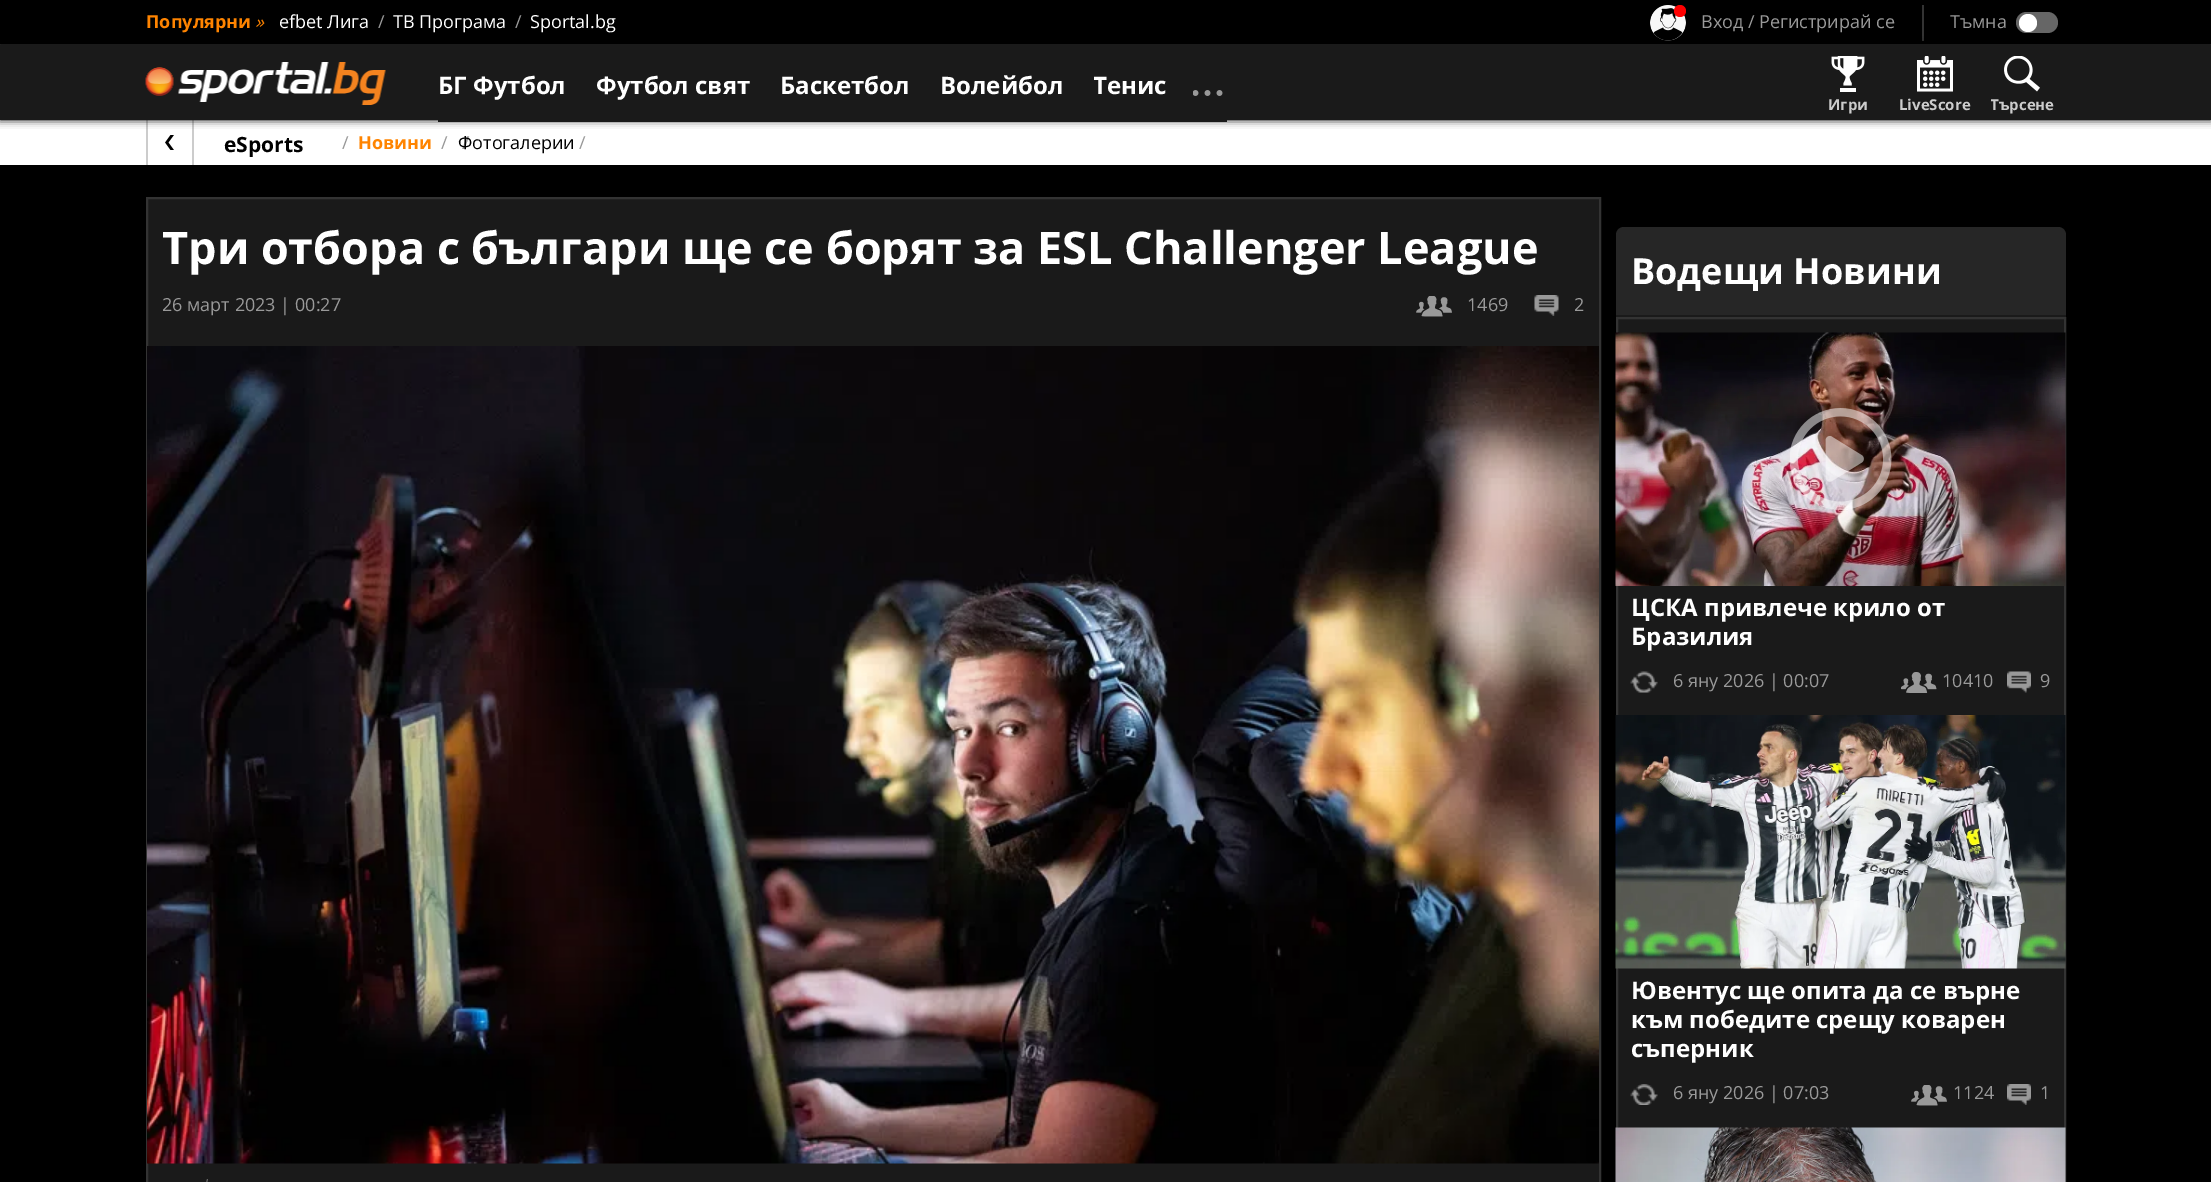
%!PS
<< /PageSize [2211 1182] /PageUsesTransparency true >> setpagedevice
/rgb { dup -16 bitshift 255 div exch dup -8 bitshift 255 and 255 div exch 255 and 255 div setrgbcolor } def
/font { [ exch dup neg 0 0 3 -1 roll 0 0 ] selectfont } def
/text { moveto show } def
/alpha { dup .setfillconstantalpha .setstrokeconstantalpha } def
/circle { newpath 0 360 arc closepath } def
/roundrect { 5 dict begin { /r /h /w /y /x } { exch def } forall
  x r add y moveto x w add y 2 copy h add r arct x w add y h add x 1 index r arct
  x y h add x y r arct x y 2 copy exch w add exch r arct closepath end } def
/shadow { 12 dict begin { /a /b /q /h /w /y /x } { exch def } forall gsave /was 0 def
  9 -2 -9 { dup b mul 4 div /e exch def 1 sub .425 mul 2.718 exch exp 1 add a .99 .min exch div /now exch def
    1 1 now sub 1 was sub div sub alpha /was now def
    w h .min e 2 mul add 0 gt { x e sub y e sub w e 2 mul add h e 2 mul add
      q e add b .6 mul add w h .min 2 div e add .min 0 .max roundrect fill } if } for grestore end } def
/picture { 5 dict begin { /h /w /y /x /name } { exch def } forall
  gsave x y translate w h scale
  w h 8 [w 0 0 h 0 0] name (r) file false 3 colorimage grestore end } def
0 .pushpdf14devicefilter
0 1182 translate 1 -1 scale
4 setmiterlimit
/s1 { /OpenSans-Bold 18 font 16#FF8400 rgb } def
/s2 { /OpenSans-Italic 18 font 16#FF8400 rgb } def
/s3 { /OpenSans-Regular 18 font 16#FFFFFF rgb } def
/s4 { /OpenSans-Regular 18 font 16#999999 rgb } def
/s5 { /OpenSans-Bold 24 font 16#FFFFFF rgb } def
/s6 { /OpenSans-Bold 15 font 16#CCCCCC rgb } def
/s7 { /OpenSans-Bold 21 font 16#000000 rgb } def
/s8 { /OpenSans-Bold 18 font 16#999999 rgb } def
/s9 { /OpenSans-Regular 18 font 16#000000 rgb } def
/s10 { /OpenSans-Bold 45 font 16#FFFFFF rgb } def
/s11 { /OpenSans-Bold 36 font 16#FFFFFF rgb } def
16#000000 rgb
0 0 2211 1182 rectfill
16#333333 rgb
0 44 2211 1 rectfill
s1
(Популярни) 146 28 text
s2
(») 255 28 text
s3
(efbet Лига) 279 28 text
s4
(/) 378 28 text
s3
(ТВ Програма) 393 28 text
s4
(/) 515 28 text
s3
(Sportal.bg) 530 28 text
(pic1.raw) 1650 5 36 36 picture
16#FF0000 rgb
1680 11 6 circle fill
s4
(Вход / Регистрирай се) 1701 28 text
16#333333 rgb
1922 5 2 36 rectfill
s4
(Тъмна) 1950 28 text
16#666666 rgb
2016 12 42 21 10.5 roundrect fill
16#FFFFFF rgb
2028 23 9 circle fill
0 120 2211 45 rectfill
16#CCCCCC rgb
192 120 2 45 rectfill
146 120 2 45 rectfill
16#000000 rgb
0 45 2211 75 0 4 0.99 shadow
16#1A1A1A rgb
0 45 2211 75 rectfill
(pic2.raw) 145 62 241 43 picture
438 120 789 2 rectfill
s5
(БГ Футбол) 438 94 text
(Футбол свят) 596 94 text
(Баскетбол) 780 94 text
(Волейбол) 940 94 text
gsave
1094 50 73 72 rectclip
(Тенис) 1093 94 text
grestore
(pic3.raw) 1193 90 30 6 picture
(pic4.raw) 1831 56 34 36 picture
s6
(Игри) 1828 110 text
(pic5.raw) 1917 56 36 36 picture
(LiveScore) 1899 110 text
(pic6.raw) 2004 56 36 36 picture
gsave
1991 96 63 20 rectclip
(Търсене) 1990 110 text
grestore
(pic7.raw) 165 135 9 15 picture
s7
(eSports) 224 152 text
s4
(/) 342 149 text
s1
(Новини) 358 149 text
s8
(/) 462 149 text
s4
(/) 441 149 text
s9
(Фотогалерии) 458 149 text
s4
(/) 579 149 text
16#1A1A1A rgb
147 198 moveto 1600 198 lineto 1600 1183 lineto 147 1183 lineto closepath gsave fill grestore
16#333333 rgb
2 setlinewidth
stroke
s10
(Три отбора с българи ще се борят за ESL Challenger League) 162 264 text
s4
(26 март 2023 | 00:27) 162 311 text
(pic8.raw) 1416 296 36 21 picture
(1469) 1467 311 text
(pic9.raw) 1534 295 25 21 picture
(2) 1574 311 text
(pic10.raw) 147 346 1452 818 picture
16#666666 rgb
208 1179 moveto 192 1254 lineto 190 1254 lineto 207 1179 lineto closepath eofill
16#262626 rgb
1624 227 moveto 2058 227 lineto 2062.5 227 2066 230.5 2066 235 curveto 2066 317 lineto 1616 317 lineto 1616 235 lineto 1616 230.5 1619.5 227 1624 227 curveto closepath fill
16#1A1A1A rgb
1616 315 450 2 rectfill
s11
(Водещи Новини) 1631 284 text
16#1A1A1A rgb
1618 319 446 809 rectfill
16#333333 rgb
1617 318 448 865 rectstroke
(pic11.raw) 1615 332 451 254 picture
(pic12.raw) 1790 408 102 102 picture
s5
(ЦСКА привлече крило от) 1631 616 text
(Бразилия) 1631 645 text
(pic13.raw) 1630 671 28 22 picture
s4
(6 яну 2026 | 00:07) 1673 687 text
(pic14.raw) 1901 672 36 21 picture
(10410) 1942 687 text
(pic15.raw) 2007 671 24 22 picture
(9) 2040 687 text
(pic16.raw) 1615 715 451 254 picture
s5
(Ювентус ще опита да се върне) 1631 999 text
(към победите срещу коварен) 1631 1028 text
(съперник) 1631 1057 text
(pic17.raw) 1630 1084 28 21 picture
s4
(6 яну 2026 | 07:03) 1673 1099 text
(pic8.raw) 1911 1085 36 21 picture
(1124) 1953 1099 text
(pic18.raw) 2007 1084 24 21 picture
(1) 2040 1099 text
(pic19.raw) 1615 1127 451 55 picture
.poppdf14devicefilter showpage
